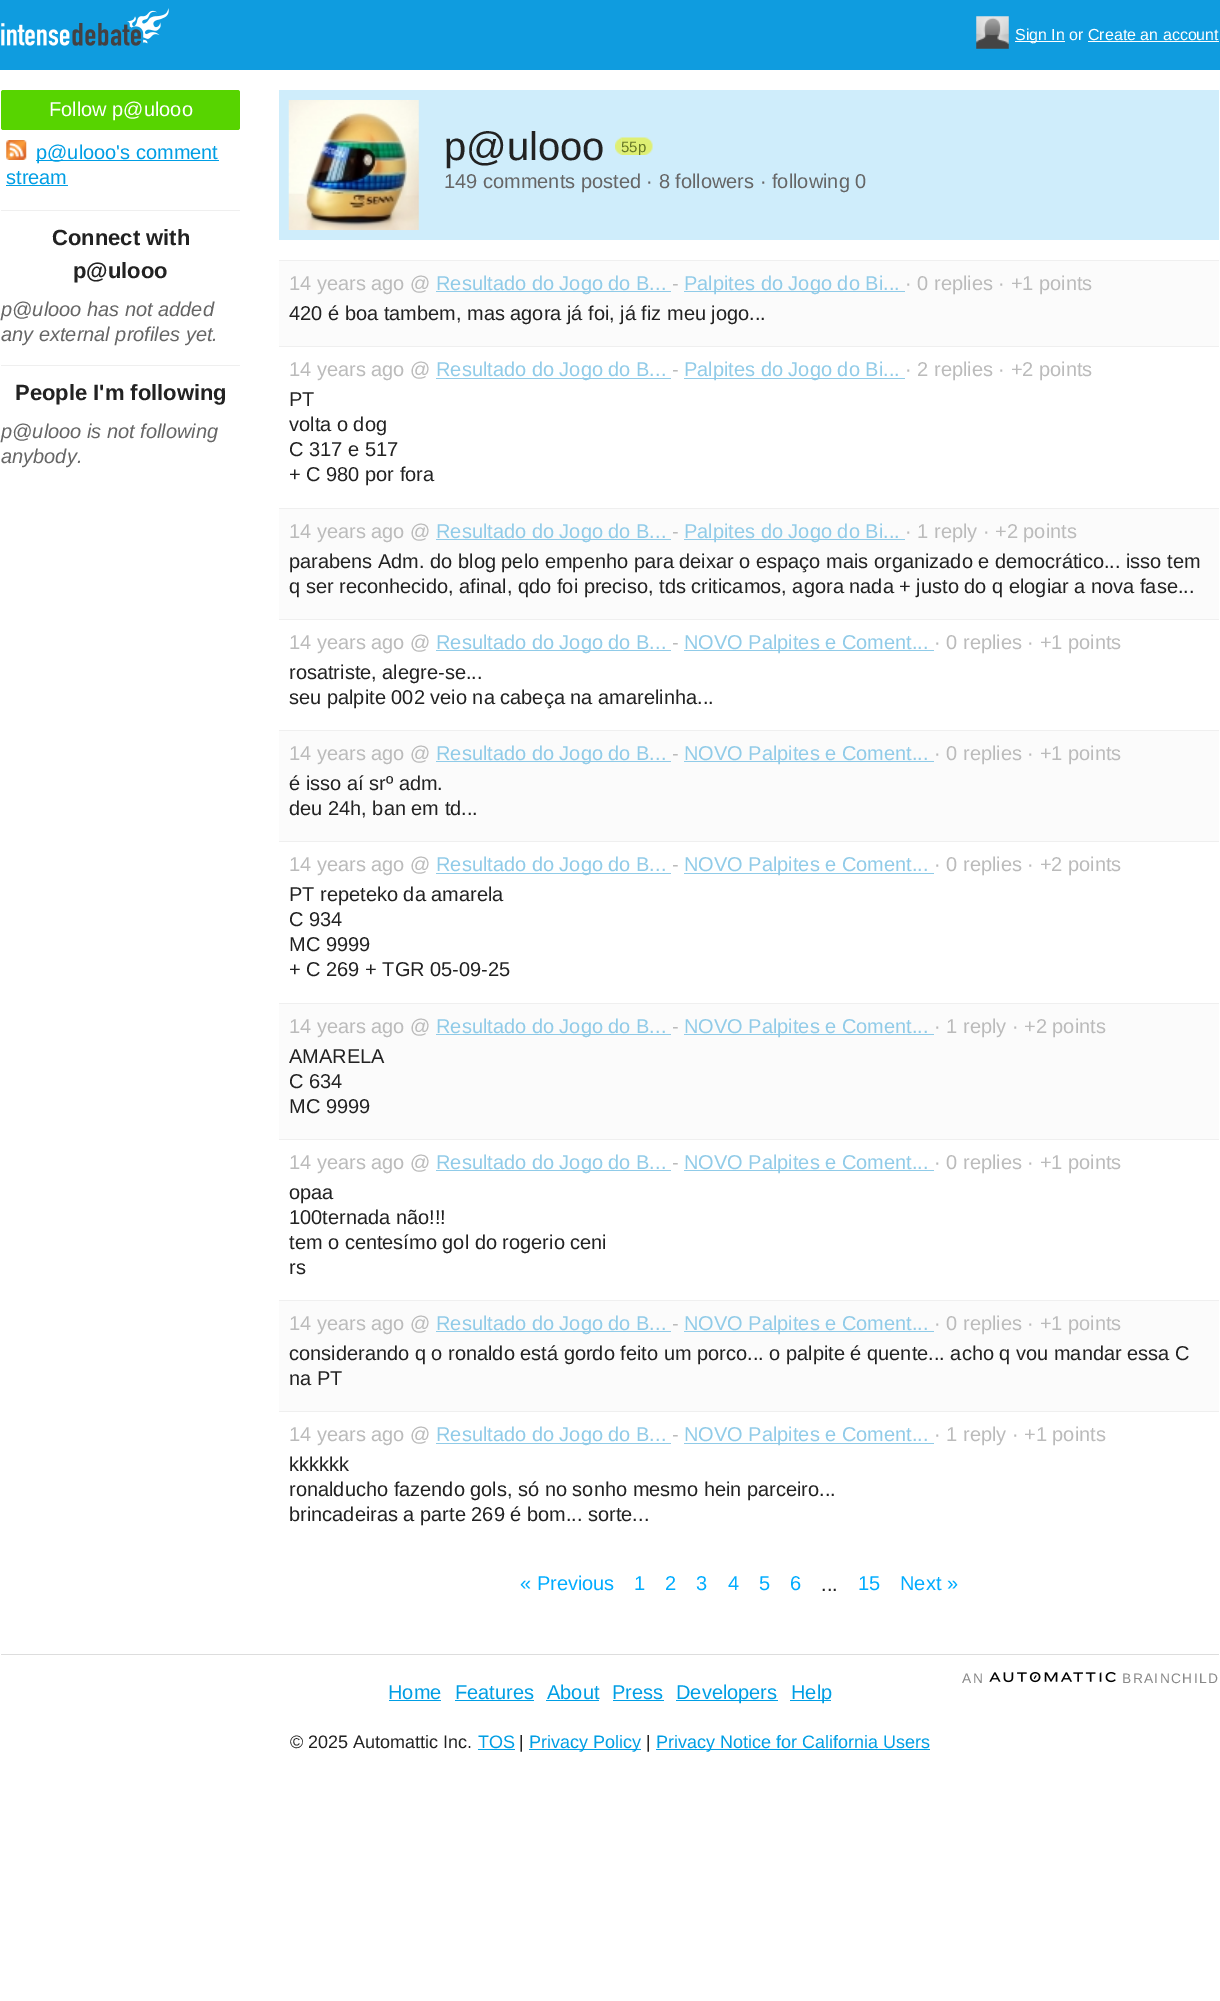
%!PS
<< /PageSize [1220 2001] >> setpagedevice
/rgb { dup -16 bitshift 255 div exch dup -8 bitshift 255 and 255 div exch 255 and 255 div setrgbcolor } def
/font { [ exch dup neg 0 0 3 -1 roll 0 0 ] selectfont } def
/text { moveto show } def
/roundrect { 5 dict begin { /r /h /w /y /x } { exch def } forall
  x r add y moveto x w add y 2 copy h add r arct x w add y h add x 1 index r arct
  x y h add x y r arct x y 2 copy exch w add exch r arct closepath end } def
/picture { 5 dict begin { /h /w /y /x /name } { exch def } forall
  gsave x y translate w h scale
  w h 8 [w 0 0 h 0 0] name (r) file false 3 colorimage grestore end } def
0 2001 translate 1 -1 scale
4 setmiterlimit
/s1 { /LiberationSans-Regular 16 font 16#FFFFFF rgb } def
/s2 { /LiberationSans-Regular 20 font 16#FFFFFF rgb } def
/s3 { /LiberationSans-Regular 20 font 16#009EE4 rgb } def
/s4 { /LiberationSans-Bold 22 font 16#222222 rgb } def
/s5 { /LiberationSans-Italic 20 font 16#666666 rgb } def
/s6 { /LiberationSans-Regular 40 font 16#222222 rgb } def
/s7 { /LiberationSans-Regular 15 font 16#667726 rgb } def
/s8 { /LiberationSans-Regular 20 font 16#666666 rgb } def
/s9 { /LiberationSans-Regular 20 font 16#BBBBBB rgb } def
/s10 { /LiberationSans-Regular 20 font 16#90CBE8 rgb } def
/s11 { /LiberationSans-Regular 20 font 16#222222 rgb } def
/s12 { /LiberationSans-Regular 20 font 16#00ACFF rgb } def
/s13 { /LiberationSans-Regular 18 font 16#222222 rgb } def
/s14 { /LiberationSans-Regular 18 font 16#009EE4 rgb } def
16#FFFFFF rgb
0 0 1220 2001 rectfill
16#0F9CDF rgb
0 0 1220 70 rectfill
(pic1.raw) 1 8 168 38 picture
(pic2.raw) 976 16 33 33 picture
16#FFFFFF rgb
1015 41 50 1 rectfill
s1
(Sign In or Create an account) 1015 40 text
1088 41 131 1 rectfill
16#57D400 rgb
1 90 239 40 2.5 roundrect fill
s2
(Follow p@ulooo) 49 116 text
(pic3.raw) 6 140 21 20 picture
16#009EE4 rgb
36 160 183 1 rectfill
(p@ulooo's comment) 36 159 text
(stream) 6 184 text
6 185 62 1 rectfill
16#EFEFEF rgb
1 210 239 1 rectfill
s4
(Connect with) 52 245 text
(p@ulooo) 73 278 text
s5
(p@ulooo has not added) 1 316 text
(any external profiles yet.) 1 341 text
16#EFEFEF rgb
1 365 239 1 rectfill
s4
(People I'm following) 15 400 text
s5
(p@ulooo is not following) 1 438 text
(anybody.) 1 463 text
16#CFEDFB rgb
279 90 940 150 rectfill
(pic4.raw) 288 100 131 130 picture
s6
(p@ulooo) 444 160 text
(pic5.raw) 615 137 7 18 picture
(pic6.raw) 621 137 32 18 picture
s7
(55p) 621 152 text
s8
(149 comments posted · 8 followers · following 0) 444 188 text
16#FBFBFB rgb
279 261 940 85 rectfill
16#EFEFEF rgb
279 260 940 1 rectfill
s9
(14 years ago @) 289 290 text
16#90CBE8 rgb
436 291 235 1 rectfill
(Resultado do Jogo do B...) 436 290 text
s9
(-) 672 290 text
16#90CBE8 rgb
684 291 221 1 rectfill
(Palpites do Jogo do Bi...) 684 290 text
s9
(· 0 replies · +1 points) 905 290 text
s11
(420 é boa tambem, mas agora já foi, já fiz meu jogo...) 289 320 text
16#EFEFEF rgb
279 346 940 1 rectfill
s9
(14 years ago @) 289 376 text
16#90CBE8 rgb
436 378 235 1 rectfill
(Resultado do Jogo do B...) 436 376 text
s9
(-) 672 376 text
16#90CBE8 rgb
684 378 221 1 rectfill
(Palpites do Jogo do Bi...) 684 376 text
s9
(· 2 replies · +2 points) 905 376 text
s11
(PT) 289 406 text
(volta o dog) 289 431 text
(C 317 e 517) 289 456 text
(+ C 980 por fora) 289 481 text
16#FBFBFB rgb
279 509 940 110 rectfill
16#EFEFEF rgb
279 508 940 1 rectfill
s9
(14 years ago @) 289 538 text
16#90CBE8 rgb
436 539 235 1 rectfill
(Resultado do Jogo do B...) 436 538 text
s9
(-) 672 538 text
16#90CBE8 rgb
684 539 221 1 rectfill
(Palpites do Jogo do Bi...) 684 538 text
s9
(· 1 reply · +2 points) 905 538 text
s11
(parabens Adm. do blog pelo empenho para deixar o espaço mais organizado e democrático... isso tem) 289 568 text
(q ser reconhecido, afinal, qdo foi preciso, tds criticamos, agora nada + justo do q elogiar a nova fase...) 289 593 text
16#EFEFEF rgb
279 619 940 1 rectfill
s9
(14 years ago @) 289 649 text
16#90CBE8 rgb
436 650 235 1 rectfill
(Resultado do Jogo do B...) 436 649 text
s9
(-) 672 649 text
16#90CBE8 rgb
684 650 250 1 rectfill
(NOVO Palpites e Coment...) 684 649 text
s9
(· 0 replies · +1 points) 934 649 text
s11
(rosatriste, alegre-se...) 289 679 text
(seu palpite 002 veio na cabeça na amarelinha...) 289 704 text
16#FBFBFB rgb
279 731 940 110 rectfill
16#EFEFEF rgb
279 730 940 1 rectfill
s9
(14 years ago @) 289 760 text
16#90CBE8 rgb
436 761 235 1 rectfill
(Resultado do Jogo do B...) 436 760 text
s9
(-) 672 760 text
16#90CBE8 rgb
684 761 250 1 rectfill
(NOVO Palpites e Coment...) 684 760 text
s9
(· 0 replies · +1 points) 934 760 text
s11
(é isso aí srº adm.) 289 790 text
(deu 24h, ban em td...) 289 815 text
16#EFEFEF rgb
279 841 940 1 rectfill
s9
(14 years ago @) 289 871 text
16#90CBE8 rgb
436 873 235 1 rectfill
(Resultado do Jogo do B...) 436 871 text
s9
(-) 672 871 text
16#90CBE8 rgb
684 873 250 1 rectfill
(NOVO Palpites e Coment...) 684 871 text
s9
(· 0 replies · +2 points) 934 871 text
s11
(PT repeteko da amarela) 289 901 text
(C 934) 289 926 text
(MC 9999) 289 951 text
(+ C 269 + TGR 05-09-25) 289 976 text
16#FBFBFB rgb
279 1004 940 135 rectfill
16#EFEFEF rgb
279 1003 940 1 rectfill
s9
(14 years ago @) 289 1033 text
16#90CBE8 rgb
436 1034 235 1 rectfill
(Resultado do Jogo do B...) 436 1033 text
s9
(-) 672 1033 text
16#90CBE8 rgb
684 1034 250 1 rectfill
(NOVO Palpites e Coment...) 684 1033 text
s9
(· 1 reply · +2 points) 934 1033 text
s11
(AMARELA) 289 1063 text
(C 634) 289 1088 text
(MC 9999) 289 1113 text
16#EFEFEF rgb
279 1139 940 1 rectfill
s9
(14 years ago @) 289 1169 text
16#90CBE8 rgb
436 1170 235 1 rectfill
(Resultado do Jogo do B...) 436 1169 text
s9
(-) 672 1169 text
16#90CBE8 rgb
684 1170 250 1 rectfill
(NOVO Palpites e Coment...) 684 1169 text
s9
(· 0 replies · +1 points) 934 1169 text
s11
(opaa) 289 1199 text
(100ternada não!!!) 289 1224 text
(tem o centesímo gol do rogerio ceni) 289 1249 text
(rs) 289 1274 text
16#FBFBFB rgb
279 1301 940 110 rectfill
16#EFEFEF rgb
279 1300 940 1 rectfill
s9
(14 years ago @) 289 1330 text
16#90CBE8 rgb
436 1331 235 1 rectfill
(Resultado do Jogo do B...) 436 1330 text
s9
(-) 672 1330 text
16#90CBE8 rgb
684 1331 250 1 rectfill
(NOVO Palpites e Coment...) 684 1330 text
s9
(· 0 replies · +1 points) 934 1330 text
s11
(considerando q o ronaldo está gordo feito um porco... o palpite é quente... acho q vou mandar essa C) 289 1360 text
(na PT) 289 1385 text
16#EFEFEF rgb
279 1411 940 1 rectfill
s9
(14 years ago @) 289 1441 text
16#90CBE8 rgb
436 1443 235 1 rectfill
(Resultado do Jogo do B...) 436 1441 text
s9
(-) 672 1441 text
16#90CBE8 rgb
684 1443 250 1 rectfill
(NOVO Palpites e Coment...) 684 1441 text
s9
(· 1 reply · +1 points) 934 1441 text
s11
(kkkkkk) 289 1471 text
(ronalducho fazendo gols, só no sonho mesmo hein parceiro...) 289 1496 text
(brincadeiras a parte 269 é bom... sorte...) 289 1521 text
s12
(« Previous) 520 1590 text
(1) 634 1590 text
(2) 665 1590 text
(3) 696 1590 text
(4) 728 1590 text
(5) 759 1590 text
(6) 790 1590 text
s11
(...) 821 1591 text
s12
(15) 858 1590 text
(Next ») 900 1590 text
16#DDDDDD rgb
1 1654 1218 1 rectfill
/LiberationSans-Regular 13.75 font
16#888888 rgb
962 1683 moveto 1.4 0 (AN) ashow
(pic7.raw) 989 1672 127 11 picture
1122 1683 moveto 1.4 0 (BRAINCHILD) ashow
s3
(Home) 388 1699 text
389 1700 52 1 rectfill
(Features) 455 1699 text
455 1700 79 1 rectfill
(About) 547 1699 text
546 1700 53 1 rectfill
(Press) 612 1699 text
613 1700 51 1 rectfill
676 1700 102 1 rectfill
(Developers) 676 1699 text
790 1700 41 1 rectfill
(Help) 791 1699 text
s13
(© 2025 Automattic Inc.) 290 1748 text
s14
(TOS) 478 1748 text
478 1749 37 1 rectfill
s13
(|) 519 1748 text
16#009EE4 rgb
529 1749 112 1 rectfill
(Privacy Policy) 529 1748 text
s13
(|) 646 1748 text
16#009EE4 rgb
656 1749 274 1 rectfill
(Privacy Notice for California Users) 656 1748 text
showpage
